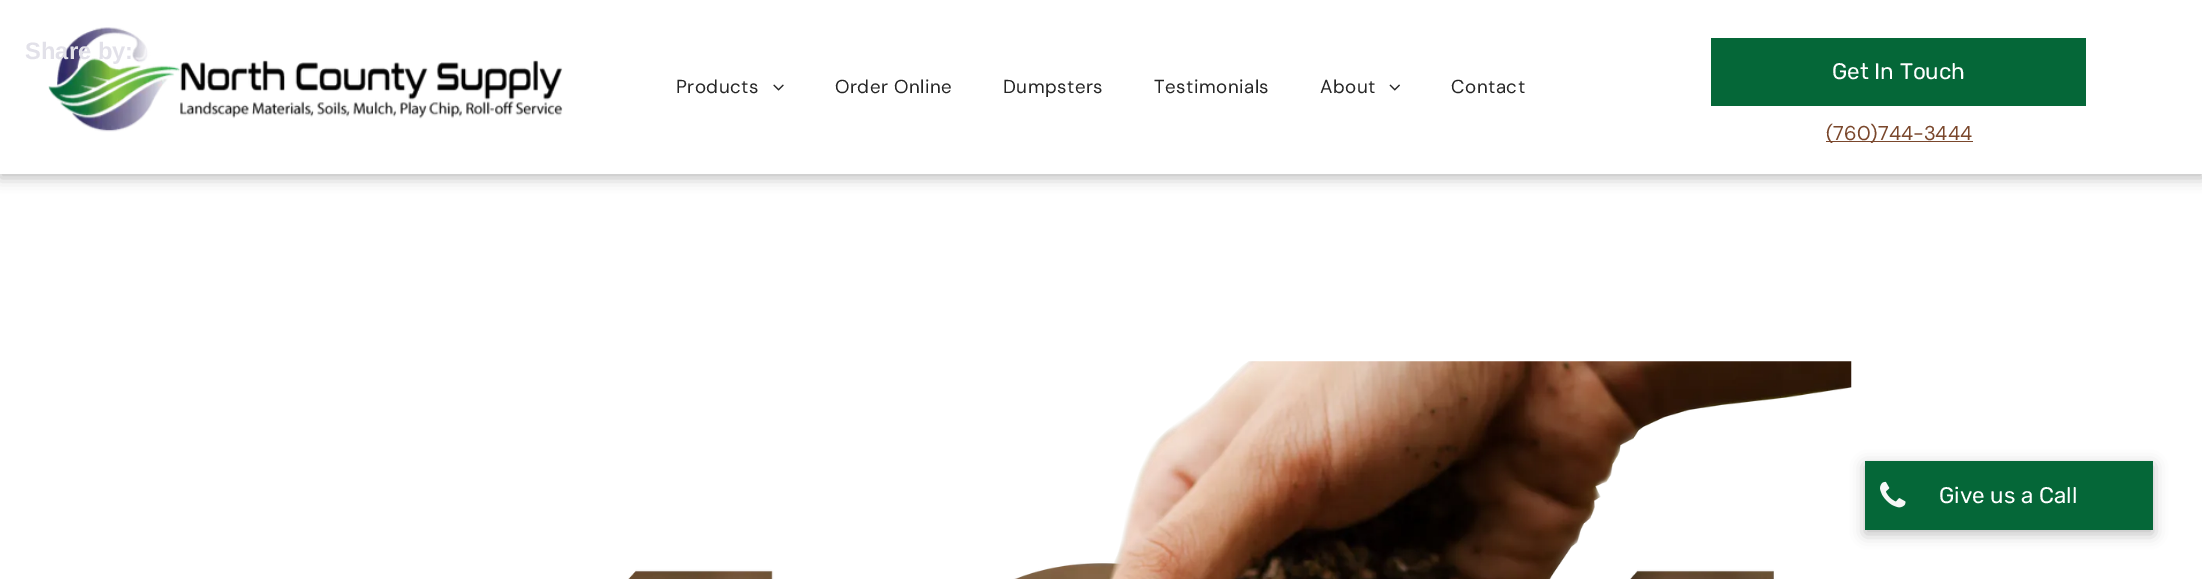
%!PS
<< /PageSize [2202 579] /PageUsesTransparency true >> setpagedevice
/rgb { dup -16 bitshift 255 div exch dup -8 bitshift 255 and 255 div exch 255 and 255 div setrgbcolor } def
/font { [ exch dup neg 0 0 3 -1 roll 0 0 ] selectfont } def
/text { moveto show } def
/alpha { dup .setfillconstantalpha .setstrokeconstantalpha } def
/roundrect { 5 dict begin { /r /h /w /y /x } { exch def } forall
  x r add y moveto x w add y 2 copy h add r arct x w add y h add x 1 index r arct
  x y h add x y r arct x y 2 copy exch w add exch r arct closepath end } def
/shadow { 12 dict begin { /a /b /q /h /w /y /x } { exch def } forall gsave /was 0 def
  9 -2 -9 { dup b mul 4 div /e exch def 1 sub .425 mul 2.718 exch exp 1 add a .99 .min exch div /now exch def
    1 1 now sub 1 was sub div sub alpha /was now def
    w h .min e 2 mul add 0 gt { x e sub y e sub w e 2 mul add h e 2 mul add
      q e add b .6 mul add w h .min 2 div e add .min 0 .max roundrect fill } if } for grestore end } def
/picture { 5 dict begin { /h /w /y /x /name } { exch def } forall
  gsave x y translate w h scale
  w h 8 [w 0 0 h 0 0] name (r) file false 3 colorimage grestore end } def
0 .pushpdf14devicefilter
0 579 translate 1 -1 scale
4 setmiterlimit
/s1 { /LiberationSans-Bold 23.75 font 16#E2E1E9 rgb } def
/s2 { /Rubik-Regular 22.5 font 16#FFFFFF rgb } def
/s3 { /DMSans-Regular 20 font 16#7A472C rgb } def
16#FFFFFF rgb
0 0 2202 579 rectfill
16#000000 rgb
0 4 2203 174 0 7 0.25 shadow
16#FFFFFF rgb
0 0 2202 174 rectfill
(pic1.raw) 48 27 515 105 picture
s1
(Share by:) 25 59 text
/DMSans-Regular 18.75 font
16#252525 rgb
676 93 moveto 0.5 0 (Products) ashow
(pic2.raw) 773 84 11 7 picture
835 93 moveto 0.5 0 (Order Online) ashow
1003 93 moveto 0.5 0 (Dumpsters) ashow
1154 93 moveto 0.5 0 (Testimonials) ashow
1320 93 moveto 0.5 0 (About) ashow
(pic3.raw) 1389 84 11 7 picture
1451 93 moveto 0.5 0 (Contact) ashow
16#056738 rgb
1711 38 375 68 rectfill
s2
(Get In Touch) 1832 79 text
16#7A472C rgb
1826 141 147 1 rectfill
s3
(\(760\)744-3444) 1826 140 text
(pic4.raw) 628 361 1224 218 picture
16#000000 rgb
1865 465 288 69 0 7 0.25 shadow
16#056738 rgb
1865 461 288 69 rectfill
(pic5.raw) 1880 481 26 27 picture
s2
(Give us a Call) 1939 503 text
.poppdf14devicefilter showpage
